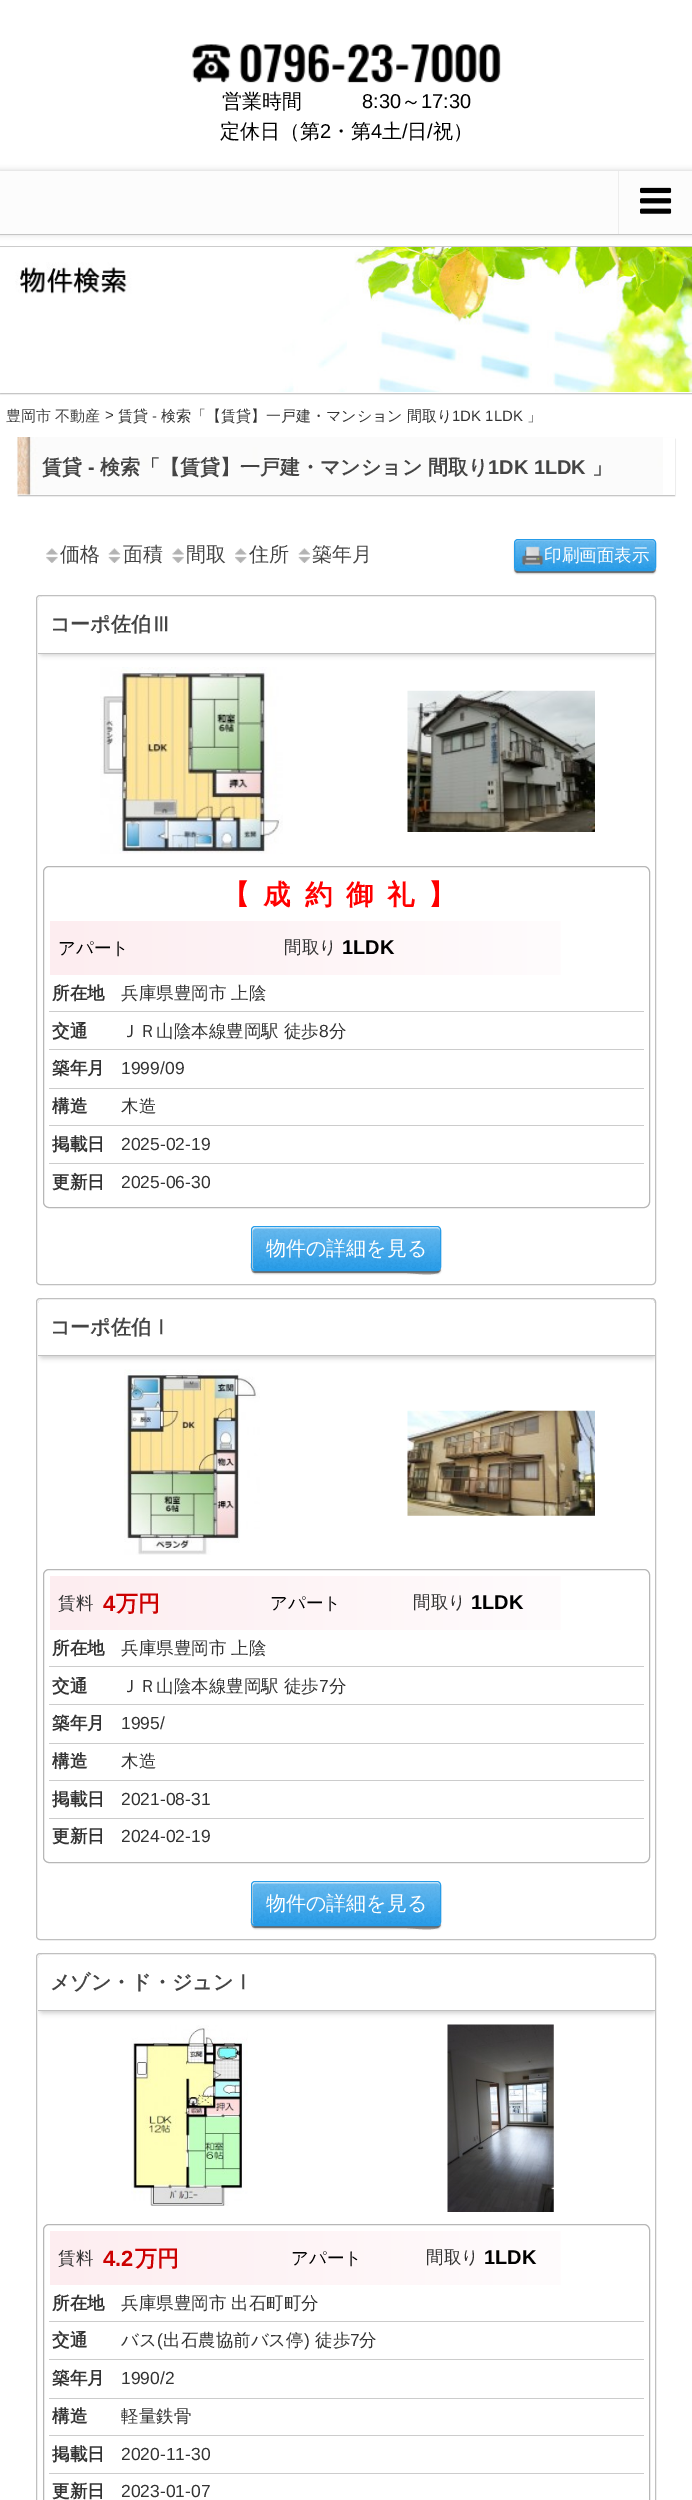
%!PS
<< /PageSize [692 2500] /PageUsesTransparency true >> setpagedevice
/rgb { dup -16 bitshift 255 div exch dup -8 bitshift 255 and 255 div exch 255 and 255 div setrgbcolor } def
/font { [ exch dup neg 0 0 3 -1 roll 0 0 ] selectfont } def
/text { moveto show } def
/alpha { dup .setfillconstantalpha .setstrokeconstantalpha } def
/roundrect { 5 dict begin { /r /h /w /y /x } { exch def } forall
  x r add y moveto x w add y 2 copy h add r arct x w add y h add x 1 index r arct
  x y h add x y r arct x y 2 copy exch w add exch r arct closepath end } def
/shadow { 12 dict begin { /a /b /q /h /w /y /x } { exch def } forall gsave /was 0 def
  9 -2 -9 { dup b mul 4 div /e exch def 1 sub .425 mul 2.718 exch exp 1 add a .99 .min exch div /now exch def
    1 1 now sub 1 was sub div sub alpha /was now def
    w h .min e 2 mul add 0 gt { x e sub y e sub w e 2 mul add h e 2 mul add
      q e add b .6 mul add w h .min 2 div e add .min 0 .max roundrect fill } if } for grestore end } def
/picture { 5 dict begin { /h /w /y /x /name } { exch def } forall
  gsave x y translate w h scale
  w h 8 [w 0 0 h 0 0] name (r) file false 3 colorimage grestore end } def
0 .pushpdf14devicefilter
0 2500 translate 1 -1 scale
4 setmiterlimit
/s1 { /WenQuanYiZenHei-Medium 20 font 16#000000 rgb } def
/s2 { /LiberationSans-Regular 20 font 16#000000 rgb } def
/s3 { /WenQuanYiZenHei-Medium 15 font 16#444444 rgb } def
/s4 { /LiberationSans-Regular 15 font 16#333333 rgb } def
/s5 { /WenQuanYiZenHei-Medium 15 font 16#333333 rgb } def
/s6 { /WenQuanYiZenHei-Bold 20 font 16#444444 rgb } def
/s7 { /LiberationSans-Bold 20 font 16#444444 rgb } def
/s8 { /WenQuanYiZenHei-Medium 20 font 16#444444 rgb } def
/s9 { /WenQuanYiZenHei-Medium 17.5 font 16#FFFFFF rgb } def
/s10 { /WenQuanYiZenHei-Medium 17.5 font 16#000000 rgb } def
/s11 { /WenQuanYiZenHei-Medium 17.5 font 16#333333 rgb } def
/s12 { /LiberationSans-Bold 20 font 16#000000 rgb } def
/s13 { /WenQuanYiZenHei-Bold 17.5 font 16#333333 rgb } def
/s14 { /LiberationSans-Regular 17.5 font 16#333333 rgb } def
/s15 { /WenQuanYiZenHei-Medium 20 font 16#FFFFFF rgb } def
/s16 { /LiberationSans-Bold 22 font 16#CC0000 rgb } def
/s17 { /WenQuanYiZenHei-Bold 22 font 16#CC0000 rgb } def
16#FFFFFF rgb
0 0 692 2500 rectfill
(pic1.raw) 192 44 309 39 picture
s1
(営業時間) 222 108 text
s2
(8:30) 362 108 text
s1
(～) 401 108 text
s2
(17:30) 421 108 text
s1
(定休日（第) 220 138 text
s2
(2) 320 138 text
s1
(・第) 331 138 text
s2
(4) 371 138 text
s1
(土) 382 138 text
s2
(/) 402 138 text
s1
(日) 407 138 text
s2
(/) 427 138 text
s1
(祝）) 433 138 text
16#D9D9D9 rgb
0 234 moveto 0 235 lineto 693 235 lineto 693 173 lineto 692 173 lineto 692 234 lineto closepath fill
16#000000 rgb
0 171 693 63 0 3 0.2 shadow
16#FCFCFC rgb
0 171 692 63 rectfill
16#EDEDED rgb
618 171 1 63 rectfill
(pic2.raw) 640 187 32 27 picture
16#CCCCCC rgb
0 246 692 1 rectfill
gsave
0 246 moveto 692 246 lineto 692 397 lineto 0 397 lineto closepath 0 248 moveto 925 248 lineto 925 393 lineto 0 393 lineto closepath eoclip newpath
16#000000 rgb
0 249 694 145 0 0.5 0.25 shadow
grestore
(pic3.raw) 15 247 677 145 picture
s3
(豊岡市 不動産) 6 421 text
s4
(>) 105 420 text
s5
(賃貸) 118 421 text
s4
(-) 152 421 text
s5
(検索「【賃貸】一戸建・マンション) 161 421 text
(間取り) 407 421 text
s4
(1DK 1LDK) 452 421 text
s5
(」) 527 421 text
gsave
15 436 moveto 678 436 lineto 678 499 lineto 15 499 lineto closepath 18 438 moveto 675 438 lineto 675 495 lineto 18 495 lineto closepath eoclip newpath
16#000000 rgb
18 439 657 57 0 0.5 0.25 shadow
grestore
(pic4.raw) 17 437 646 58 picture
s6
(賃貸) 42 474 text
s7
(-) 88 474 text
s6
(検索「【賃貸】一戸建・マンション) 100 474 text
(間取り) 428 474 text
s7
(1DK 1LDK) 488 474 text
s6
(」) 592 474 text
(pic5.raw) 46 548 12 15 picture
s8
(価格) 60 561 text
(pic6.raw) 108 548 13 15 picture
(面積) 123 561 text
(pic7.raw) 172 548 12 15 picture
(間取) 186 561 text
(pic8.raw) 235 548 12 16 picture
(住所) 249 561 text
(pic9.raw) 298 548 13 15 picture
(築年月) 312 561 text
16#000000 rgb
515 543 140 30 2.5 1 0.5 shadow
0.3 alpha
514 569 moveto 514 571 516 573 518 573 curveto 652 573 lineto 654 573 656 571 656 569 curveto 655 570 654 571 652 571 curveto 518 571 lineto 516 571 515 570 514 569 curveto closepath fill
1 alpha
16#269CE9 rgb
515 540 140 30 2.5 roundrect fill
(pic10.raw) 515 540 140 29 picture
0.3 alpha
16#FFFFFF rgb
518 541 moveto 652 541 lineto 654 541 655 542 655 544 curveto 655 542 lineto 655 541 654 540 652 540 curveto 518 540 lineto 516 540 515 541 515 542 curveto 515 544 lineto 515 542 516 541 518 541 curveto closepath fill
1 alpha
16#269CE9 rgb
514.5 539.5 141 31 3.5 roundrect stroke
(pic11.raw) 521 546 23 20 picture
s9
(印刷画面表示) 544 561 text
16#C0C0C0 rgb
36.5 595.5 619 689 3.5 roundrect stroke
gsave
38 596 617 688 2.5 roundrect clip newpath
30 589 moveto 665 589 lineto 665 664 lineto 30 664 lineto closepath 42 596 moveto 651 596 lineto 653 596 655 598 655 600 curveto 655 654 lineto 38 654 lineto 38 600 lineto 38 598 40 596 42 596 curveto closepath eoclip newpath
16#CCCCCC rgb
39 598 617 57 4 2.5 1 shadow
grestore
38 653 617 1 rectfill
s6
(コーポ佐伯Ⅲ) 50 631 text
(pic12.raw) 100 667 183 187 picture
(pic13.raw) 407 690 188 142 picture
16#B7B7B7 rgb
43.5 866.5 606 341 5.5 roundrect stroke
/WenQuanYiZenHei-Bold 27.5 font
16#FF0000 rgb
222 904 moveto 13.75 0 (【成約御礼】) ashow
gsave 50 921 moveto 561 921 lineto 561 975 lineto 50 975 lineto closepath clip newpath
<< /ShadingType 2 /ColorSpace /DeviceRGB /Coords [50 921 643 921] /Extend [true true] /Function << /FunctionType 2 /Domain [0 1] /C0 [0.992 0.929 0.941] /C1 [1 1 1] /N 1 >> >> shfill grestore
s10
(アパート) 58 954 text
s11
(間取り) 284 953 text
s12
(1LDK) 342 954 text
16#CCCCCC rgb
49 1011 595 1 rectfill
s13
(所在地) 52 999 text
s11
(兵庫県豊岡市) 121 999 text
(上陰) 231 999 text
16#CCCCCC rgb
49 1049 595 1 rectfill
s13
(交通) 52 1037 text
s11
(ＪＲ山陰本線豊岡駅 徒歩) 121 1037 text
s14
(8) 319 1037 text
s11
(分) 329 1037 text
16#CCCCCC rgb
49 1088 595 1 rectfill
s13
(築年月) 52 1074 text
s14
(1999/09) 121 1074 text
16#CCCCCC rgb
49 1125 595 1 rectfill
s13
(構造) 52 1112 text
s11
(木造) 121 1112 text
16#CCCCCC rgb
49 1163 595 1 rectfill
s13
(掲載日) 52 1150 text
s14
(2025-02-19) 121 1150 text
s13
(更新日) 52 1188 text
s14
(2025-06-30) 121 1188 text
16#000000 rgb
253 1230 187 43 2.5 1 0.5 shadow
0.3 alpha
251 1231 moveto 251 1263 lineto 251 1266 250 1273 255 1273 curveto 407 1273 lineto 412 1273 441 1278 441 1269 curveto 440 1270 439 1271 438 1271 curveto 255 1271 lineto 253 1271 251 1270 251 1268 curveto closepath fill
1 alpha
16#269CE9 rgb
253 1228 187 42 2.5 roundrect fill
(pic14.raw) 253 1227 187 42 picture
0.3 alpha
16#FFFFFF rgb
255 1229 moveto 438 1229 lineto 439 1229 440 1230 440 1231 curveto 440 1230 lineto 440 1229 439 1228 438 1228 curveto 256 1228 lineto 254 1228 254 1229 253 1230 curveto closepath fill
1 alpha
16#269CE9 rgb
251.5 1226.5 189 44 3.5 roundrect stroke
s15
(物件の詳細を見る) 266 1255 text
16#C0C0C0 rgb
36.5 1298.5 619 641 3.5 roundrect stroke
gsave
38 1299 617 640 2.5 roundrect clip newpath
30 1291 moveto 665 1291 lineto 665 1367 lineto 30 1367 lineto closepath 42 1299 moveto 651 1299 lineto 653 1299 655 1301 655 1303 curveto 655 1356 lineto 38 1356 lineto 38 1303 lineto 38 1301 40 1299 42 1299 curveto closepath eoclip newpath
16#CCCCCC rgb
39 1300 617 58 4 2.5 1 shadow
grestore
38 1355 617 1 rectfill
s6
(コーポ佐伯Ⅰ) 50 1334 text
(pic15.raw) 124 1369 136 186 picture
(pic16.raw) 407 1410 188 106 picture
16#B7B7B7 rgb
43.5 1569.5 606 293 5.5 roundrect stroke
gsave 50 1576 moveto 561 1576 lineto 561 1630 lineto 50 1630 lineto closepath clip newpath
<< /ShadingType 2 /ColorSpace /DeviceRGB /Coords [50 1576 643 1576] /Extend [true true] /Function << /FunctionType 2 /Domain [0 1] /C0 [0.992 0.929 0.941] /C1 [1 1 1] /N 1 >> >> shfill grestore
s11
(賃料) 58 1609 text
s16
(4) 103 1611 text
s17
(万円) 116 1611 text
s10
(アパート) 270 1609 text
s11
(間取り) 413 1608 text
s12
(1LDK) 471 1609 text
16#CCCCCC rgb
49 1666 595 1 rectfill
s13
(所在地) 52 1654 text
s11
(兵庫県豊岡市) 121 1654 text
(上陰) 231 1654 text
16#CCCCCC rgb
49 1704 595 1 rectfill
s13
(交通) 52 1692 text
s11
(ＪＲ山陰本線豊岡駅 徒歩) 121 1692 text
s14
(7) 319 1692 text
s11
(分) 329 1692 text
16#CCCCCC rgb
49 1743 595 1 rectfill
s13
(築年月) 52 1729 text
s14
(1995/) 121 1729 text
16#CCCCCC rgb
49 1780 595 1 rectfill
s13
(構造) 52 1767 text
s11
(木造) 121 1767 text
16#CCCCCC rgb
49 1818 595 1 rectfill
s13
(掲載日) 52 1805 text
s14
(2021-08-31) 121 1805 text
s13
(更新日) 52 1842 text
s14
(2024-02-19) 121 1842 text
16#000000 rgb
253 1885 187 43 2.5 1 0.5 shadow
0.3 alpha
251 1886 moveto 251 1918 lineto 251 1921 250 1928 255 1928 curveto 407 1928 lineto 412 1928 441 1933 441 1924 curveto 440 1925 439 1926 438 1926 curveto 255 1926 lineto 253 1926 251 1925 251 1922 curveto closepath fill
1 alpha
16#269CE9 rgb
253 1883 187 42 2.5 roundrect fill
(pic14.raw) 253 1882 187 42 picture
0.3 alpha
16#FFFFFF rgb
255 1884 moveto 438 1884 lineto 439 1884 440 1885 440 1886 curveto 440 1884 439 1883 438 1883 curveto 256 1883 lineto 254 1883 254 1884 253 1885 curveto closepath fill
1 alpha
16#269CE9 rgb
251.5 1881.5 189 44 3.5 roundrect stroke
s15
(物件の詳細を見る) 266 1910 text
16#C0C0C0 rgb
36.5 1953.5 619 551 3.5 roundrect stroke
gsave
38 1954 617 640 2.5 roundrect clip newpath
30 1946 moveto 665 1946 lineto 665 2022 lineto 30 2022 lineto closepath 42 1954 moveto 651 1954 lineto 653 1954 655 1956 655 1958 curveto 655 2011 lineto 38 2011 lineto 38 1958 lineto 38 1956 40 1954 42 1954 curveto closepath eoclip newpath
16#CCCCCC rgb
39 1955 617 58 4 2.5 1 shadow
grestore
38 2010 617 1 rectfill
s6
(メゾン・ド・ジュンⅠ) 50 1989 text
(pic17.raw) 131 2025 117 181 picture
(pic18.raw) 447 2024 107 188 picture
16#B7B7B7 rgb
43.5 2224.5 606 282 5.5 roundrect stroke
gsave 50 2231 moveto 561 2231 lineto 561 2285 lineto 50 2285 lineto closepath clip newpath
<< /ShadingType 2 /ColorSpace /DeviceRGB /Coords [50 2231 643 2231] /Extend [true true] /Function << /FunctionType 2 /Domain [0 1] /C0 [0.992 0.929 0.941] /C1 [1 1 1] /N 1 >> >> shfill grestore
s11
(賃料) 58 2264 text
s16
(4.2) 103 2266 text
s17
(万円) 135 2266 text
s10
(アパート) 291 2264 text
s11
(間取り) 426 2263 text
s12
(1LDK) 484 2264 text
16#CCCCCC rgb
49 2321 595 1 rectfill
s13
(所在地) 52 2309 text
s11
(兵庫県豊岡市) 121 2309 text
(出石町町分) 231 2309 text
16#CCCCCC rgb
49 2359 595 1 rectfill
s13
(交通) 52 2346 text
s11
(バス) 121 2346 text
s14
(\() 157 2346 text
s11
(出石農協前バス停) 163 2346 text
s14
(\)) 304 2346 text
s11
(徒歩) 315 2346 text
s14
(7) 350 2346 text
s11
(分) 359 2346 text
16#CCCCCC rgb
49 2398 595 1 rectfill
s13
(築年月) 52 2384 text
s14
(1990/2) 121 2384 text
16#CCCCCC rgb
49 2435 595 1 rectfill
s13
(構造) 52 2422 text
s11
(軽量鉄骨) 121 2422 text
16#CCCCCC rgb
49 2473 595 1 rectfill
s13
(掲載日) 52 2460 text
s14
(2020-11-30) 121 2460 text
s13
(更新日) 52 2497 text
s14
(2023-01-07) 121 2497 text
.poppdf14devicefilter showpage
